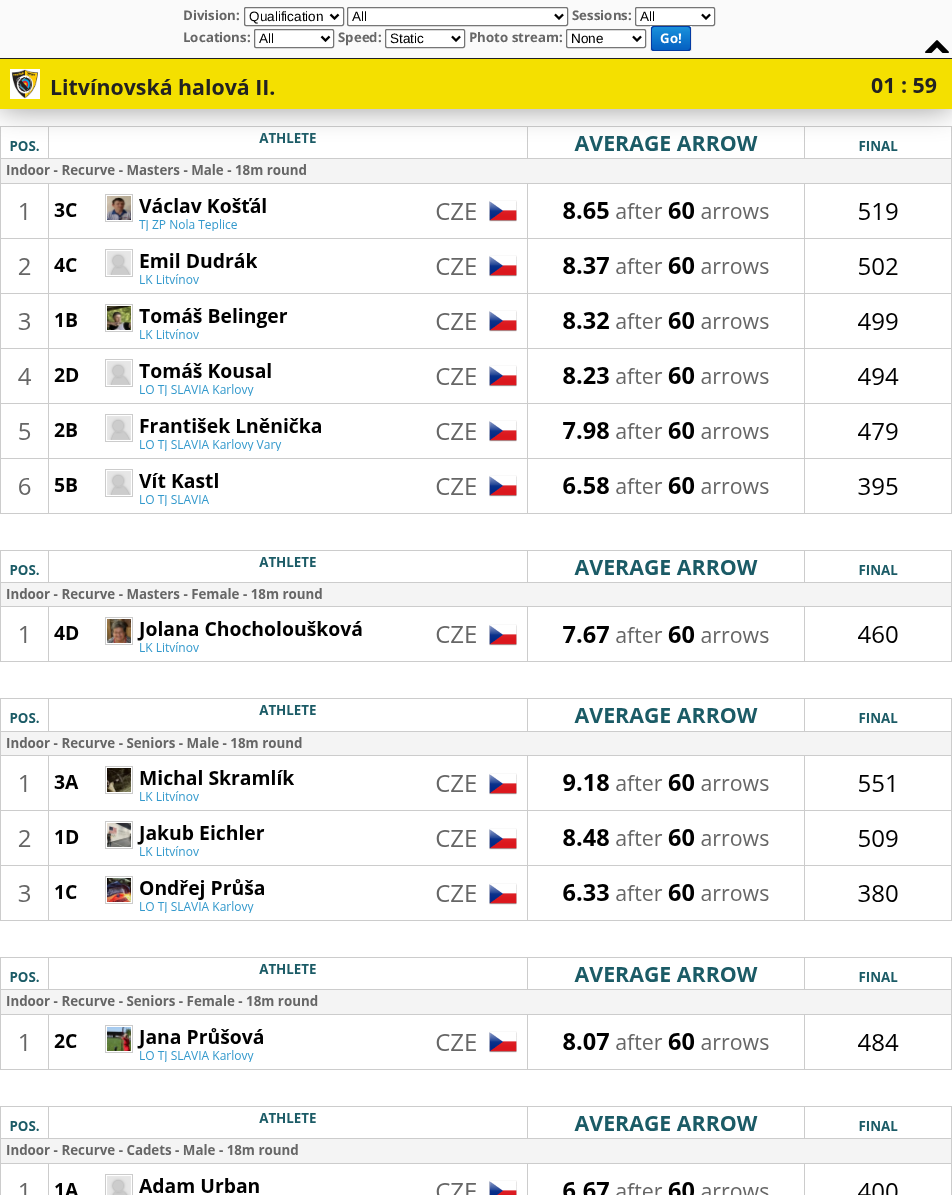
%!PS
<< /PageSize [952 1195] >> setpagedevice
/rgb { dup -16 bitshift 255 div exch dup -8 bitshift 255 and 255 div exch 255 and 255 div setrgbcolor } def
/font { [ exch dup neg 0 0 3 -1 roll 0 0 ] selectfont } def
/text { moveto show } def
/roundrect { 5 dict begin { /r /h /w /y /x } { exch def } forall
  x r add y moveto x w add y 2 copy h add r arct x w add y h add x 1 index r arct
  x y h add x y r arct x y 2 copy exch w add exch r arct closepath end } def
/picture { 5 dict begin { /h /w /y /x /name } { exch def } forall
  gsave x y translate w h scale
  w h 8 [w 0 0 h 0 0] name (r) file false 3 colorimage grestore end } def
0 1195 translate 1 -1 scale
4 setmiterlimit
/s1 { /OpenSans-Bold 13.25 font 16#666666 rgb } def
/s2 { /LiberationSans-Regular 13.5 font 16#000000 rgb } def
/s3 { /OpenSans-Bold 13.25 font 16#FFFFFF rgb } def
16#FFFFFF rgb
0 0 952 1195 rectfill
16#FAFAFA rgb
0 0 952 58 rectfill
16#222222 rgb
0 58 952 1 rectfill
s1
(Division:) 183 20 text
16#FFFFFF rgb
244.5 7.5 99 18 1.5 roundrect gsave fill grestore
16#767676 rgb
stroke
16#000000 rgb
2 setlinewidth
330.5 14.5 moveto 334.5 18.5 lineto 338.5 14.5 lineto stroke
s2
(Qualification) 249 21 text
16#FFFFFF rgb
347.5 7.5 220 18 1.5 roundrect gsave fill grestore
16#767676 rgb
1 setlinewidth
stroke
16#000000 rgb
2 setlinewidth
555 14.5 moveto 559 18.5 lineto 563 14.5 lineto stroke
(All) 352 21 text
s1
(Sessions:) 572 20 text
16#FFFFFF rgb
635.5 7.5 79 18 1.5 roundrect gsave fill grestore
16#767676 rgb
1 setlinewidth
stroke
16#000000 rgb
2 setlinewidth
702 14.5 moveto 706 18.5 lineto 710 14.5 lineto stroke
s2
(All) 640 21 text
s1
(Locations:) 183 42 text
16#FFFFFF rgb
254.5 29.5 79 18 1.5 roundrect gsave fill grestore
16#767676 rgb
1 setlinewidth
stroke
16#000000 rgb
2 setlinewidth
321.5 36.5 moveto 325.5 40.5 lineto 329.5 36.5 lineto stroke
s2
(All) 259 43 text
s1
(Speed:) 338 42 text
16#FFFFFF rgb
385.5 29.5 79 18 1.5 roundrect gsave fill grestore
16#767676 rgb
1 setlinewidth
stroke
16#000000 rgb
2 setlinewidth
452 36.5 moveto 456 40.5 lineto 460 36.5 lineto stroke
s2
(Static) 390 43 text
s1
(Photo stream:) 469 42 text
16#FFFFFF rgb
566.5 29.5 79 18 1.5 roundrect gsave fill grestore
16#767676 rgb
1 setlinewidth
stroke
16#000000 rgb
2 setlinewidth
633 36.5 moveto 637 40.5 lineto 641 36.5 lineto stroke
s2
(None) 571 43 text
(pic1.raw) 650 26 5 25 picture
(pic2.raw) 655 26 31 25 picture
s3
(Go!) 660 43 text
(pic3.raw) 686 26 6 25 picture
(pic4.raw) 925 40 24 13 picture
(pic5.raw) 0 59 952 1136 picture
showpage
